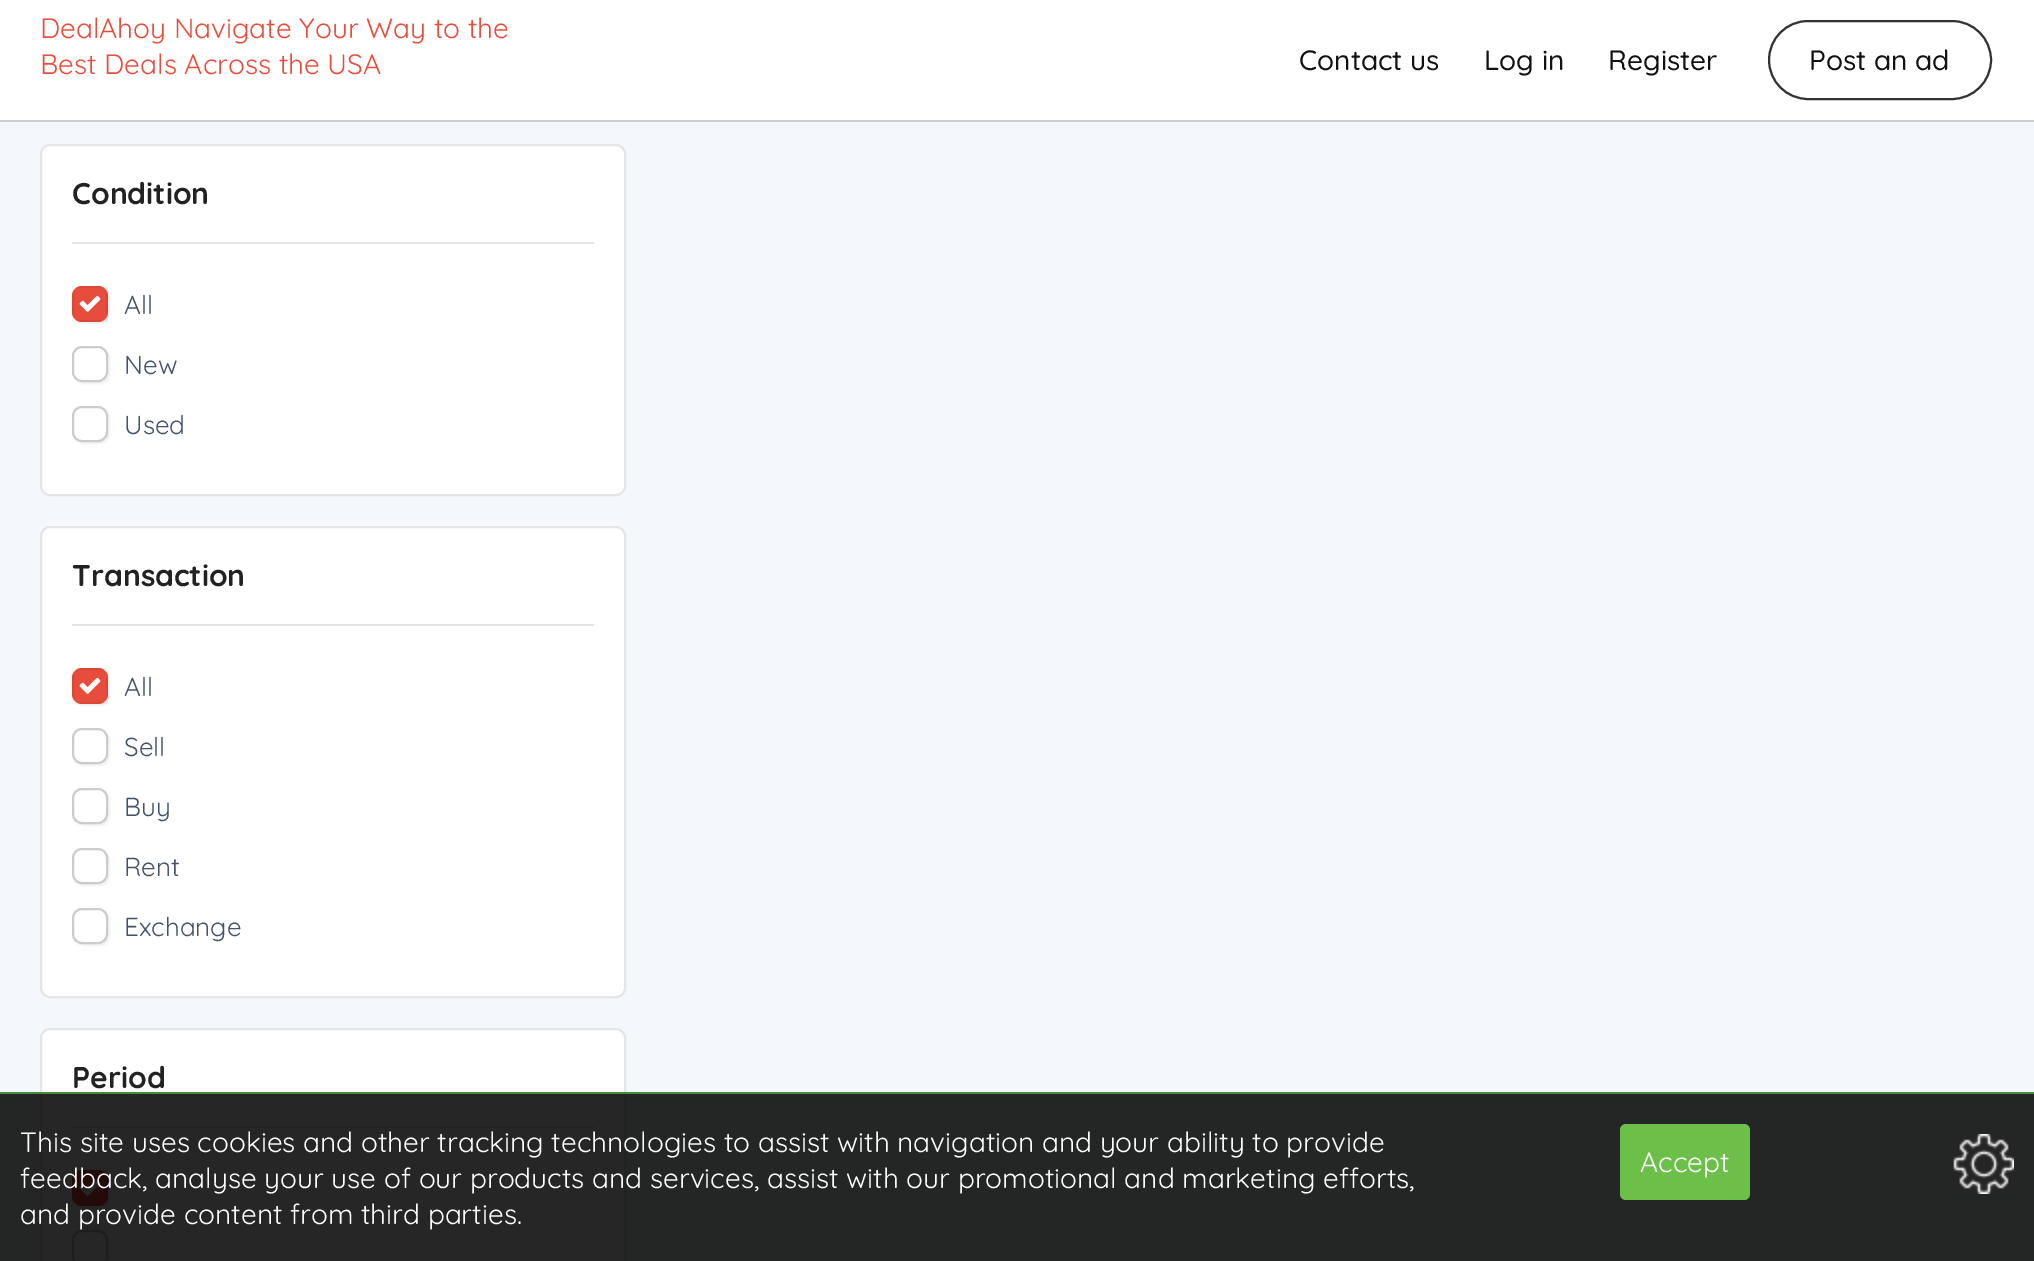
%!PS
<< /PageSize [2034 1261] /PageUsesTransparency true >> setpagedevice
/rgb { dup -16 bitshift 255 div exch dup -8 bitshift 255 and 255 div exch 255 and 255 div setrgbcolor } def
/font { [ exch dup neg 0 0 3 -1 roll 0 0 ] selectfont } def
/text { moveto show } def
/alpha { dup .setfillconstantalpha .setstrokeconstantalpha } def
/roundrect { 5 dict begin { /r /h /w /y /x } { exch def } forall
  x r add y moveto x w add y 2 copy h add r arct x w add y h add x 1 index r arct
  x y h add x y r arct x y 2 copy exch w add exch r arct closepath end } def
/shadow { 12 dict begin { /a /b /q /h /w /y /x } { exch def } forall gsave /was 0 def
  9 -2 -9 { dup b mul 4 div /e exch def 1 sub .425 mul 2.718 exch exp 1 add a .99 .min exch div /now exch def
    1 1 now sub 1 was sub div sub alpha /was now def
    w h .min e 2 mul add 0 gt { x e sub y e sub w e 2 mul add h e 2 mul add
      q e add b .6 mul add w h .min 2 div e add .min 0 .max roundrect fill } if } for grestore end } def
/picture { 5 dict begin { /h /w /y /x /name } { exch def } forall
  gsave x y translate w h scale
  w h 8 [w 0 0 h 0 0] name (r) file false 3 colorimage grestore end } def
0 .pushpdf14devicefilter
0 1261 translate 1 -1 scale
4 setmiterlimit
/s1 { /Quicksand-Regular 28 font 16#E74C3C rgb } def
/s2 { /Quicksand-Medium 28 font 16#111111 rgb } def
/s3 { /Quicksand-Bold 30 font 16#222222 rgb } def
/s4 { /Quicksand-Regular 26 font 16#435269 rgb } def
/s5 { /Quicksand-Regular 28 font 16#FFFFFF rgb } def
16#F4F7FB rgb
0 0 2034 1261 rectfill
16#FFFFFF rgb
0 0 2034 120 rectfill
16#CCCCCC rgb
0 120 2034 2 rectfill
s1
(DealAhoy Navigate Your Way to the) 40 38 text
(Best Deals Across the USA) 40 74 text
s2
(Contact us) 1299 70 text
(Log in) 1484 70 text
(Register) 1608 70 text
16#333333 rgb
2 setlinewidth
1769 21 222 78 39 roundrect stroke
s2
(Post an ad) 1809 70 text
16#FFFFFF rgb
40 144 586 352 10 roundrect fill
0.1 alpha
16#000000 rgb
41 145 584 350 9 roundrect stroke
1 alpha
16#E6E6E6 rgb
72 242 522 2 rectfill
s3
(Condition) 72 204 text
16#000000 rgb
74 288 36 36 10 1 0.06 shadow
16#E74C3C rgb
72 286 36 36 10 roundrect fill
0.05 alpha
16#000000 rgb
73 287 34 34 rectstroke
1 alpha
s4
(All) 124 314 text
(pic1.raw) 79 295 22 17 picture
gsave
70 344 moveto 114 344 lineto 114 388 lineto 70 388 lineto closepath 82 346 moveto 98 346 lineto 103.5 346 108 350.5 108 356 curveto 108 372 lineto 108 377.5 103.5 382 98 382 curveto 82 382 lineto 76.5 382 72 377.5 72 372 curveto 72 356 lineto 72 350.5 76.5 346 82 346 curveto closepath eoclip newpath
16#000000 rgb
74 348 36 36 10 1 0.06 shadow
grestore
16#CCCCCC rgb
73 347 34 34 9 roundrect stroke
s4
(New) 124 374 text
gsave
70 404 moveto 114 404 lineto 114 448 lineto 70 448 lineto closepath 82 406 moveto 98 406 lineto 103.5 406 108 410.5 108 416 curveto 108 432 lineto 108 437.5 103.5 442 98 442 curveto 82 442 lineto 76.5 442 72 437.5 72 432 curveto 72 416 lineto 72 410.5 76.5 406 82 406 curveto closepath eoclip newpath
16#000000 rgb
74 408 36 36 10 1 0.06 shadow
grestore
16#CCCCCC rgb
73 407 34 34 9 roundrect stroke
s4
(Used) 124 434 text
16#FFFFFF rgb
40 526 586 472 10 roundrect fill
0.1 alpha
16#000000 rgb
41 527 584 470 9 roundrect stroke
1 alpha
16#E6E6E6 rgb
72 624 522 2 rectfill
s3
(Transaction) 72 586 text
16#000000 rgb
74 670 36 36 10 1 0.06 shadow
16#E74C3C rgb
72 668 36 36 10 roundrect fill
0.05 alpha
16#000000 rgb
73 669 34 34 rectstroke
1 alpha
s4
(All) 124 696 text
(pic1.raw) 79 677 22 17 picture
gsave
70 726 moveto 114 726 lineto 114 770 lineto 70 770 lineto closepath 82 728 moveto 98 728 lineto 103.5 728 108 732.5 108 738 curveto 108 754 lineto 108 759.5 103.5 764 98 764 curveto 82 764 lineto 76.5 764 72 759.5 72 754 curveto 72 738 lineto 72 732.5 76.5 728 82 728 curveto closepath eoclip newpath
16#000000 rgb
74 730 36 36 10 1 0.06 shadow
grestore
16#CCCCCC rgb
73 729 34 34 9 roundrect stroke
s4
(Sell) 124 756 text
gsave
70 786 moveto 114 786 lineto 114 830 lineto 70 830 lineto closepath 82 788 moveto 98 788 lineto 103.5 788 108 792.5 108 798 curveto 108 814 lineto 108 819.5 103.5 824 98 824 curveto 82 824 lineto 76.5 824 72 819.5 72 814 curveto 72 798 lineto 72 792.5 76.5 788 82 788 curveto closepath eoclip newpath
16#000000 rgb
74 790 36 36 10 1 0.06 shadow
grestore
16#CCCCCC rgb
73 789 34 34 9 roundrect stroke
s4
(Buy) 124 816 text
gsave
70 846 moveto 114 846 lineto 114 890 lineto 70 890 lineto closepath 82 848 moveto 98 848 lineto 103.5 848 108 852.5 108 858 curveto 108 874 lineto 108 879.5 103.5 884 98 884 curveto 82 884 lineto 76.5 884 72 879.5 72 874 curveto 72 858 lineto 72 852.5 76.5 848 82 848 curveto closepath eoclip newpath
16#000000 rgb
74 850 36 36 10 1 0.06 shadow
grestore
16#CCCCCC rgb
73 849 34 34 9 roundrect stroke
s4
(Rent) 124 876 text
gsave
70 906 moveto 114 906 lineto 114 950 lineto 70 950 lineto closepath 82 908 moveto 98 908 lineto 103.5 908 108 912.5 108 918 curveto 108 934 lineto 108 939.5 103.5 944 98 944 curveto 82 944 lineto 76.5 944 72 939.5 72 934 curveto 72 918 lineto 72 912.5 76.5 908 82 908 curveto closepath eoclip newpath
16#000000 rgb
74 910 36 36 10 1 0.06 shadow
grestore
16#CCCCCC rgb
73 909 34 34 9 roundrect stroke
s4
(Exchange) 124 936 text
16#FFFFFF rgb
40 1028 586 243 10 roundrect fill
0.1 alpha
16#000000 rgb
41 1029 584 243 9 roundrect stroke
1 alpha
16#E6E6E6 rgb
72 1126 522 2 rectfill
s3
(Period) 72 1088 text
16#000000 rgb
74 1172 36 36 10 1 0.06 shadow
16#E74C3C rgb
72 1170 36 36 10 roundrect fill
0.05 alpha
16#000000 rgb
73 1171 34 34 rectstroke
1 alpha
(pic1.raw) 79 1179 22 17 picture
gsave
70 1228 moveto 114 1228 lineto 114 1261 lineto 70 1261 lineto closepath 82 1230 moveto 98 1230 lineto 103.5 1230 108 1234.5 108 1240 curveto 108 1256 lineto 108 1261.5 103.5 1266 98 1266 curveto 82 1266 lineto 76.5 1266 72 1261.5 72 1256 curveto 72 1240 lineto 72 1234.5 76.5 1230 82 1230 curveto closepath eoclip newpath
74 1232 36 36 10 1 0.06 shadow
grestore
16#CCCCCC rgb
73 1231 34 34 9 roundrect stroke
0.85 alpha
16#000000 rgb
0 1094 2034 167 rectfill
1 alpha
16#438D38 rgb
0 1092 2034 2 rectfill
s5
(This site uses cookies and other tracking technologies to assist with navigation and your ability to provide) 20 1152 text
(feedback, analyse your use of our products and services, assist with our promotional and marketing efforts,) 20 1188 text
(and provide content from third parties.) 20 1224 text
16#6CC04A rgb
1620 1124 130 76 6 roundrect fill
s5
(Accept) 1640 1172 text
(pic2.raw) 1953 1134 61 60 picture
.poppdf14devicefilter showpage
